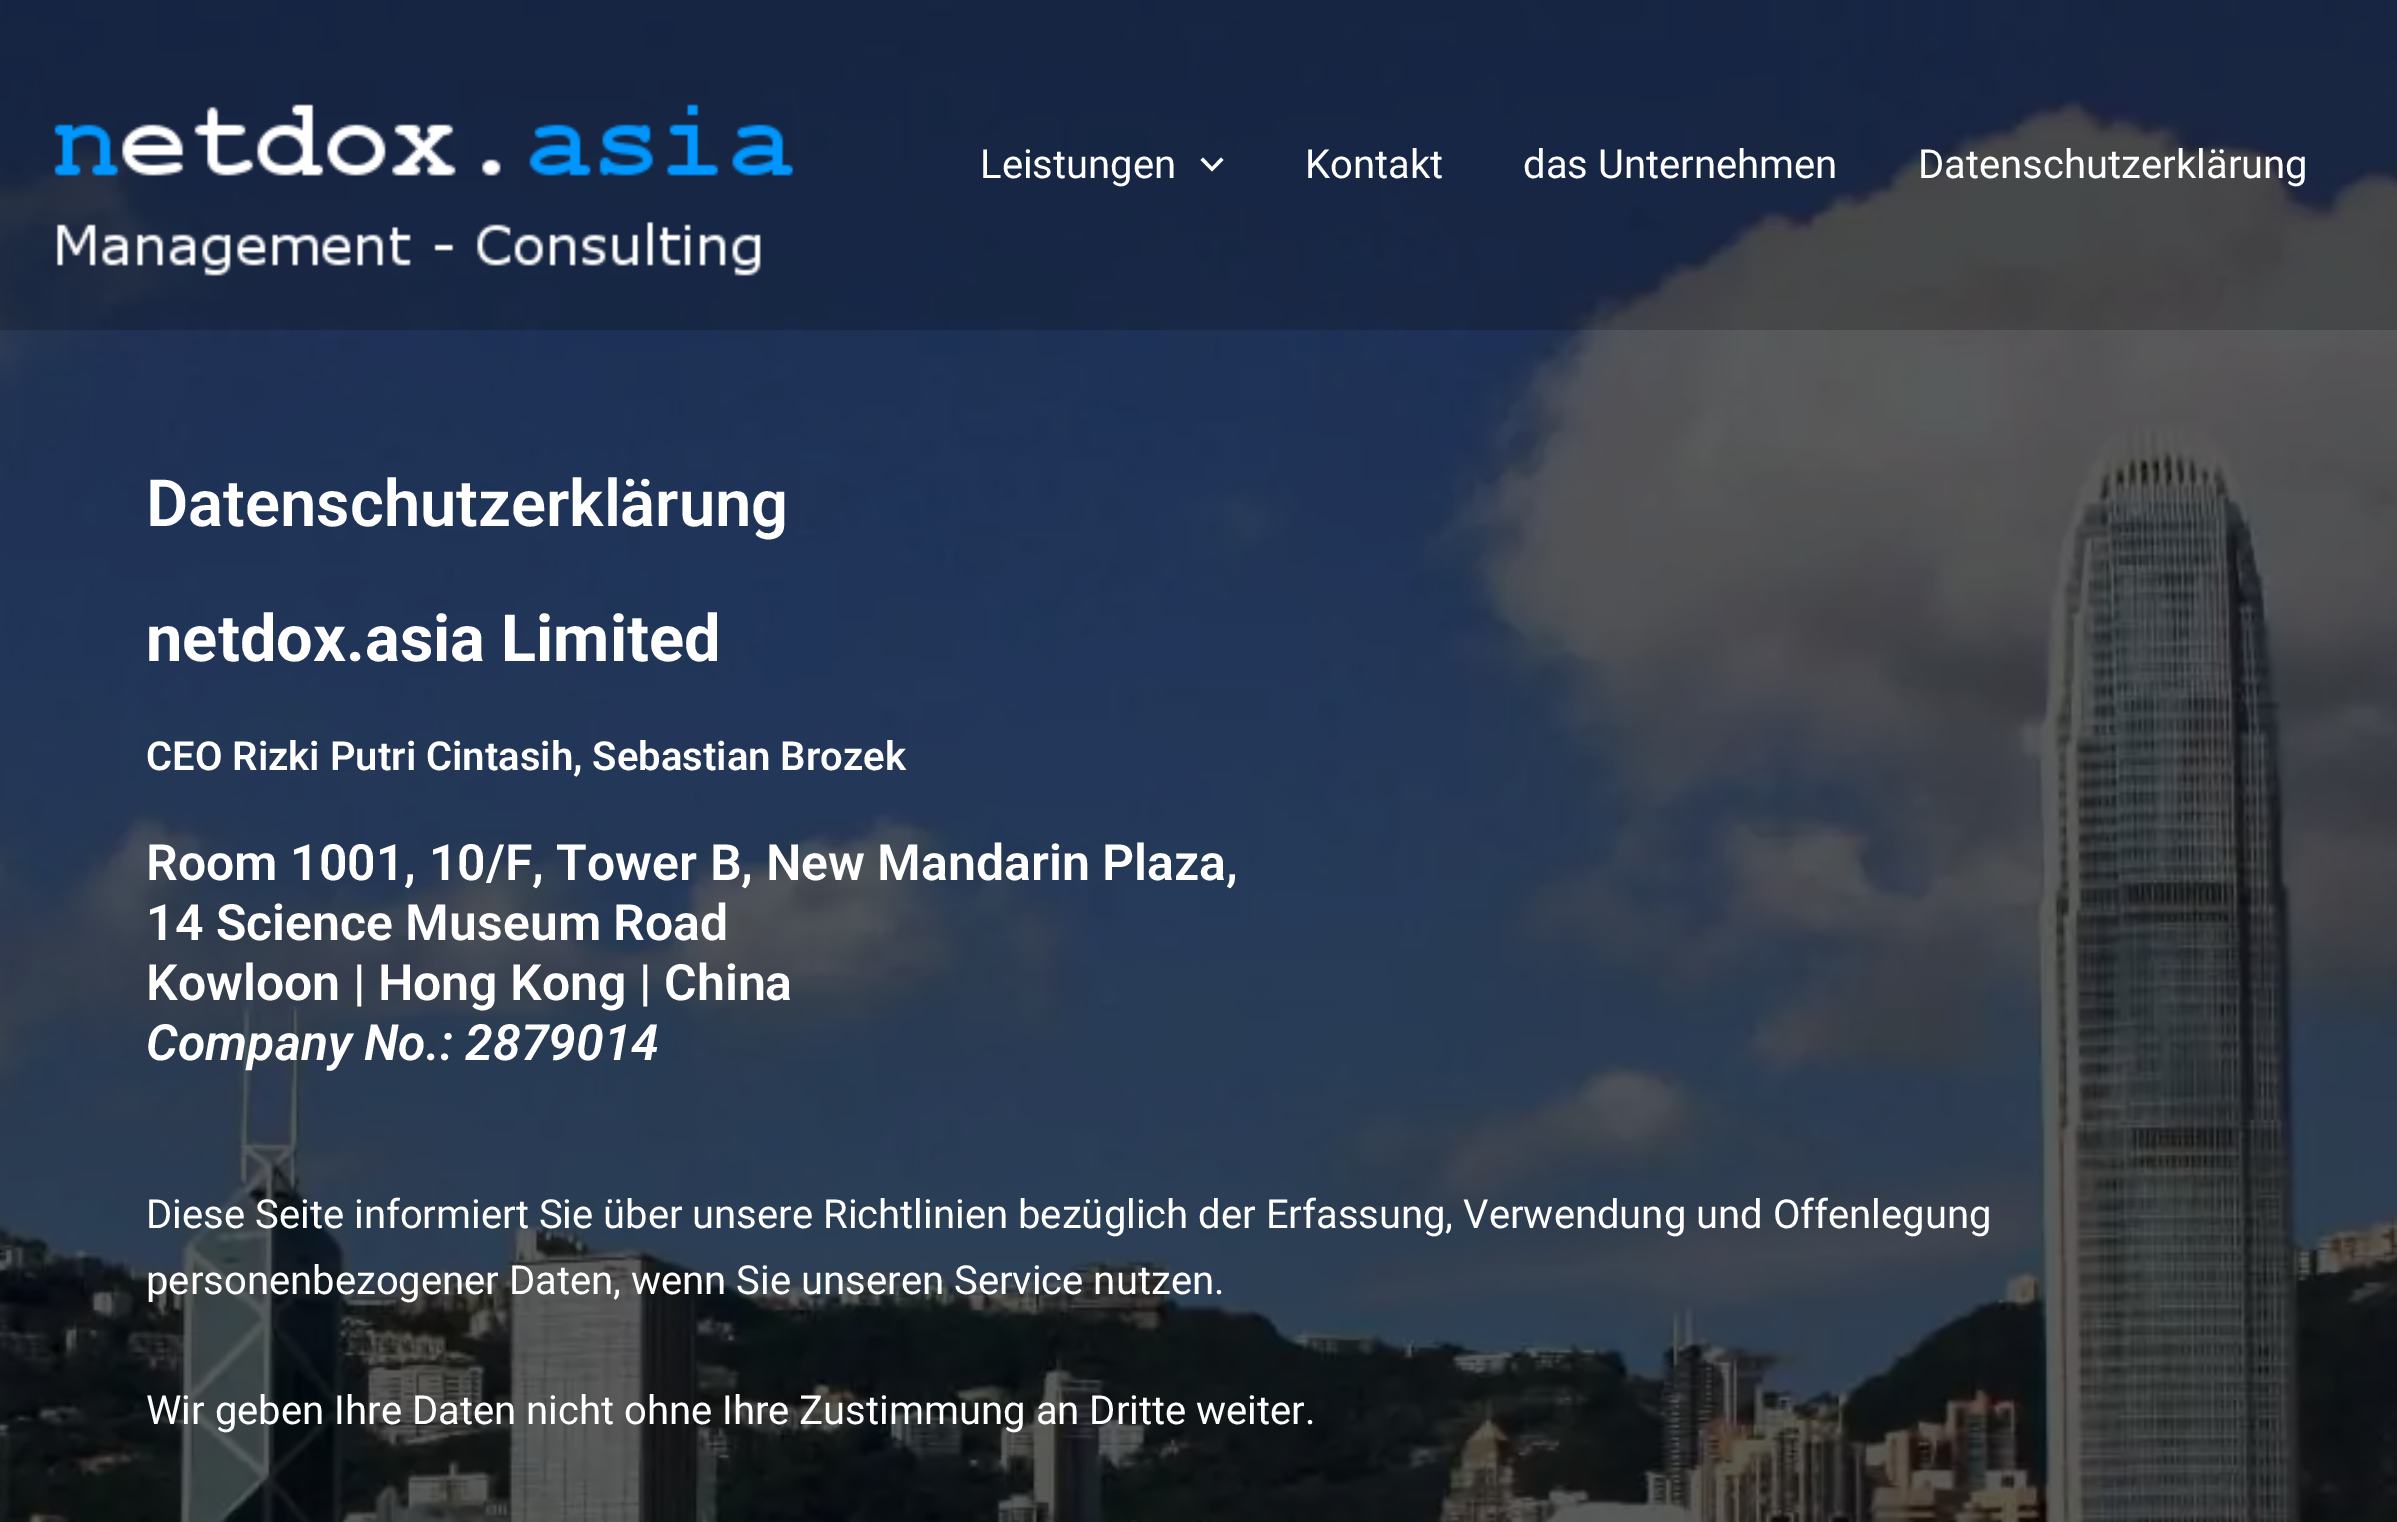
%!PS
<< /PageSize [2397 1522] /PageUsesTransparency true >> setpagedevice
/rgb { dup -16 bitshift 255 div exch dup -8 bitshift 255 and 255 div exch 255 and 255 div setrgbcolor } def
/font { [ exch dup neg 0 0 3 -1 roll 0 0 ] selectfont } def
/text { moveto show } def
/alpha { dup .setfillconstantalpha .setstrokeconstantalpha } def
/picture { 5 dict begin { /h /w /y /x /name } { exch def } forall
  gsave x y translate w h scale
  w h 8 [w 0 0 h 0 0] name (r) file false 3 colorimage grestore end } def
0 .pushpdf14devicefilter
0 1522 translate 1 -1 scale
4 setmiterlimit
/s1 { /Roboto-Regular 40 font 16#FFFFFF rgb } def
/s2 { /Roboto-SemiBold 65 font 16#FFFFFF rgb } def
/s3 { /Roboto-Bold 65 font 16#FFFFFF rgb } def
/s4 { /Roboto-SemiBold 40 font 16#FFFFFF rgb } def
/s5 { /Roboto-SemiBold 50 font 16#FFFFFF rgb } def
/s6 { /Roboto-SemiBoldItalic 50 font 16#FFFFFF rgb } def
16#FFFFFF rgb
0 0 2397 1522 rectfill
(pic1.raw) 0 0 2397 1522 picture
0.2 alpha
16#000000 rgb
0 0 2397 330 rectfill
1 alpha
(pic2.raw) 54 104 740 172 picture
s1
(Leistungen) 980 178 text
1200.5 160 moveto 1212 171.5 lineto 1223.5 160 lineto 1221 157.5 lineto 1212 167 lineto 1203 157.5 lineto closepath fill
(Kontakt) 1305 178 text
(das Unternehmen) 1523 178 text
(Datenschutzerklärung) 1918 178 text
s2
(Datenschutzerklärung) 146 526 text
s3
(netdox.asia Limited) 146 661 text
s4
(CEO Rizki Putri Cintasih, Sebastian Brozek) 146 770 text
s5
(Room 1001, 10/F, Tower B, New Mandarin Plaza,) 146 880 text
(14 Science Museum Road) 146 940 text
(Kowloon | Hong Kong | China) 146 1000 text
s6
(Company No.: 2879014) 146 1060 text
s1
(Diese Seite informiert Sie über unsere Richtlinien bezüglich der Erfassung, Verwendung und Offenlegung) 146 1228 text
(personenbezogener Daten, wenn Sie unseren Service nutzen.) 146 1294 text
(Wir geben Ihre Daten nicht ohne Ihre Zustimmung an Dritte weiter.) 146 1424 text
.poppdf14devicefilter showpage
